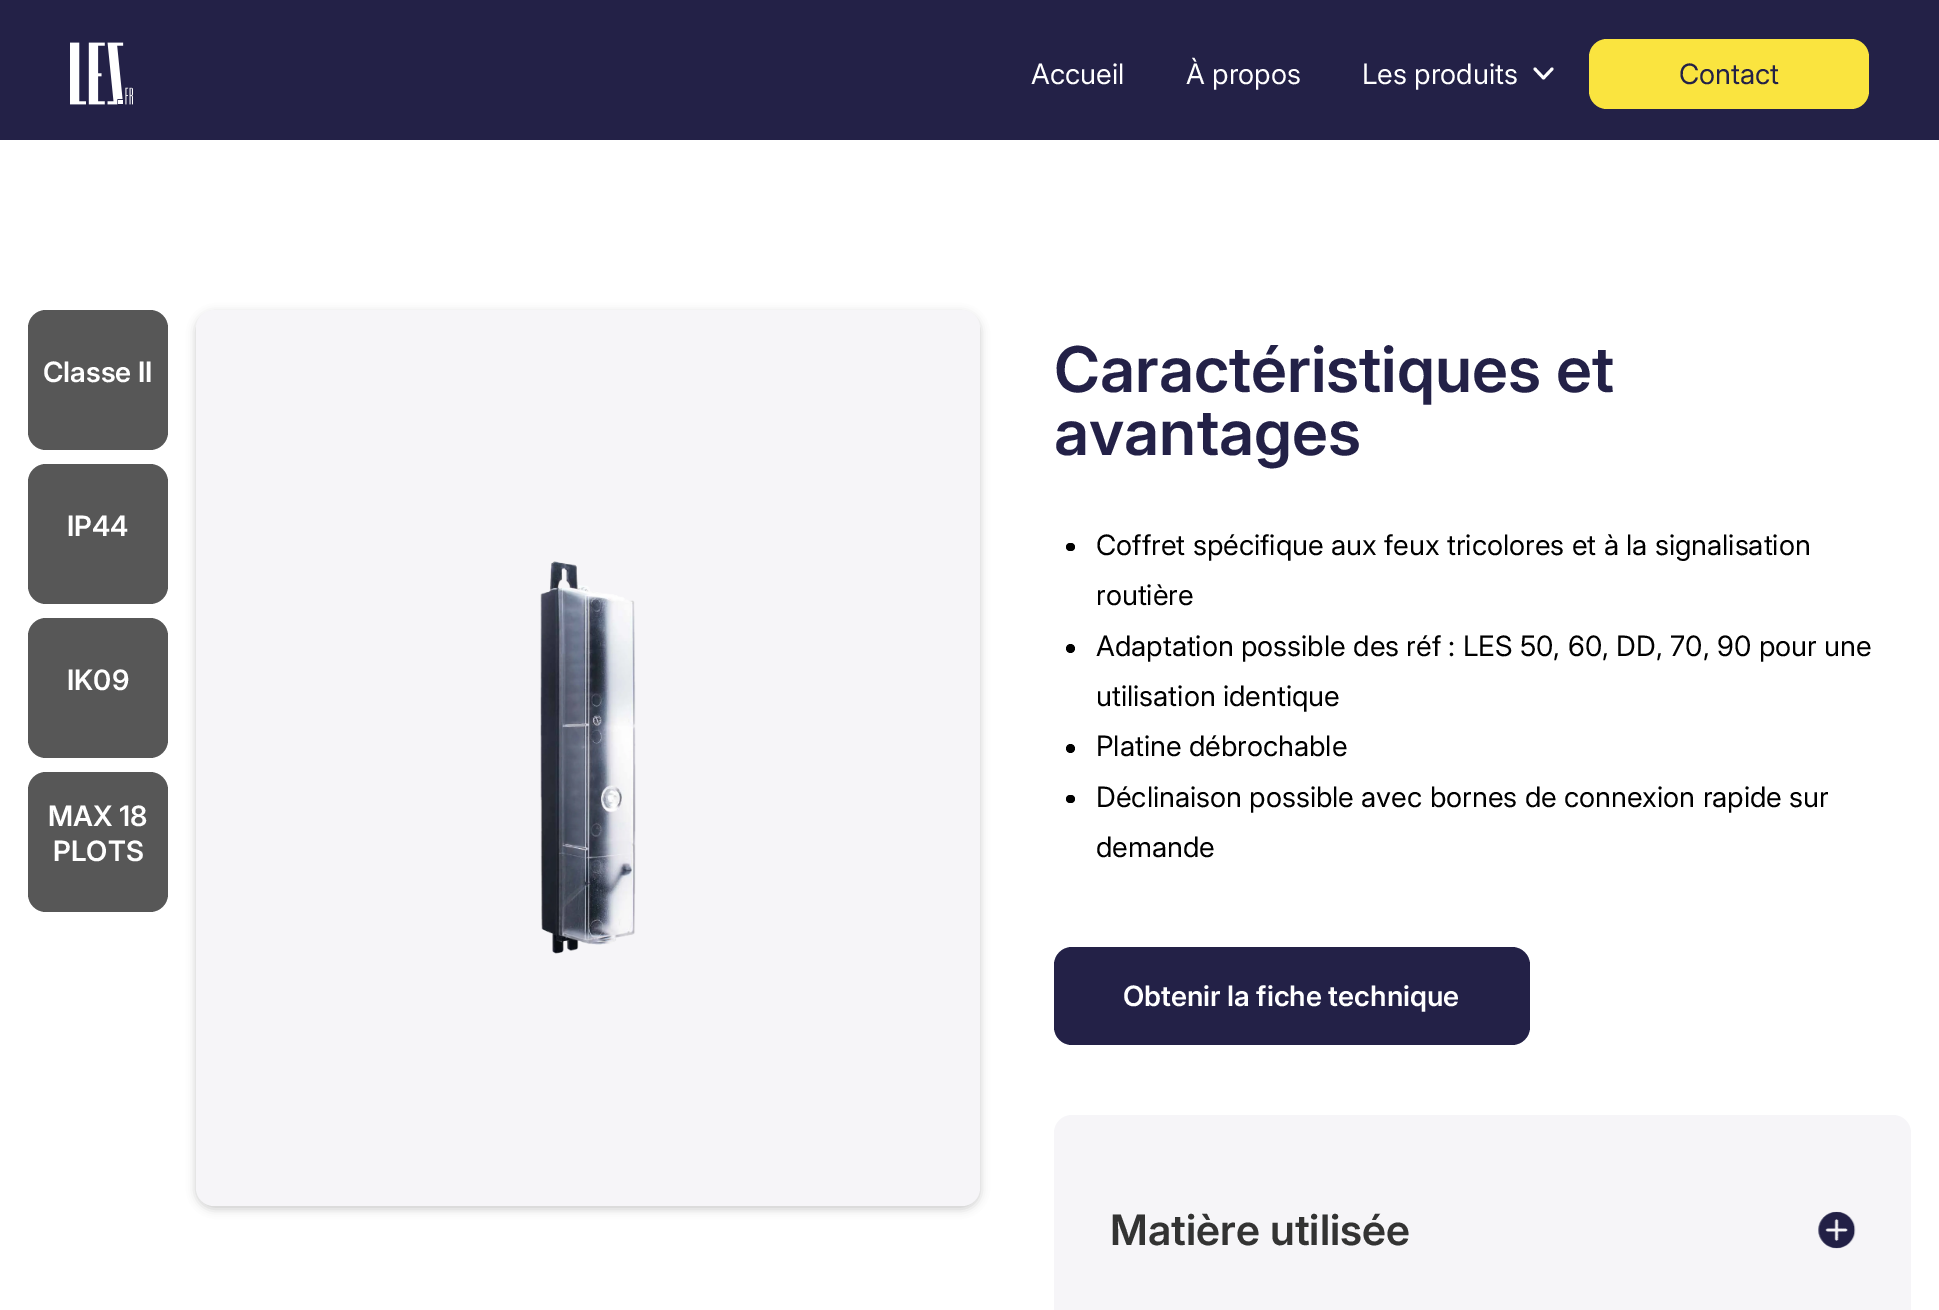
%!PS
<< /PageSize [1939 1310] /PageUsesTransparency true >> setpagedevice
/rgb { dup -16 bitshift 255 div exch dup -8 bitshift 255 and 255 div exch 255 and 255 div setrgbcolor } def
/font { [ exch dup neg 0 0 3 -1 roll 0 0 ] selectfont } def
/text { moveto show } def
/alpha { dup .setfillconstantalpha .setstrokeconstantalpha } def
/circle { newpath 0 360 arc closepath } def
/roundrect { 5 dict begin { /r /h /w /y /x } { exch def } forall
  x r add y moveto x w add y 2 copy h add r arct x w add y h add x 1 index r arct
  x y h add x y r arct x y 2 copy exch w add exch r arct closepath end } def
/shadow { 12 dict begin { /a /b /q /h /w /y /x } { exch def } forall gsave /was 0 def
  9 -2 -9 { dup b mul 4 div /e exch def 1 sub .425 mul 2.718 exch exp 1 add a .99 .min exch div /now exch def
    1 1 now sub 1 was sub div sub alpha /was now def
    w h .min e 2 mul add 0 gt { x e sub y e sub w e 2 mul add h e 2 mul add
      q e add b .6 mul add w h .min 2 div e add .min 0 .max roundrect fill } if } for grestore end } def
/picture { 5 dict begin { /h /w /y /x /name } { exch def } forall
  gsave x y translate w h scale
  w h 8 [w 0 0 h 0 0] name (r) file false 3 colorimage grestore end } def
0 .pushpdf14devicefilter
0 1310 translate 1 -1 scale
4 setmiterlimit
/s1 { /Inter-Regular 28 font 16#FFFFFF rgb } def
/s2 { /Inter-Regular 28 font 16#232147 rgb } def
/s3 { /Inter-SemiBold 28 font 16#FFFFFF rgb } def
/s4 { /Inter-SemiBold 63 font 16#232147 rgb } def
/s5 { /Inter-Regular 28 font 16#000000 rgb } def
/s6 { /Inter-SemiBold 42 font 16#333333 rgb } def
16#FFFFFF rgb
0 0 1939 1310 rectfill
16#232147 rgb
0 0 1939 140 rectfill
(pic1.raw) 70 42 63 63 picture
s1
(Accueil) 1031 84 text
(À propos) 1186 84 text
(Les produits) 1362 84 text
2.9 setlinewidth
1 setlinecap
1 setlinejoin
1535 69 moveto 1543.5 78 lineto 1552 69 lineto stroke
16#FAE43F rgb
1589 39 280 70 18 roundrect fill
s2
(Contact) 1679 84 text
16#575757 rgb
28 310 140 140 18 roundrect fill
s3
(Classe II) 43 382 text
16#575757 rgb
28 464 140 140 18 roundrect fill
s3
(IP44) 67 536 text
16#575757 rgb
28 618 140 140 18 roundrect fill
s3
(IK09) 67 690 text
16#575757 rgb
28 772 140 140 18 roundrect fill
s3
(MAX 18) 48 826 text
(PLOTS) 53 861 text
16#000000 rgb
196 313 784 896 18 4.5 0.2 shadow
16#F6F5F8 rgb
196 310 784 896 18 roundrect fill
(pic2.raw) 540 561 96 393 picture
s4
(Caractéristiques et) 1054 392 text
(avantages) 1054 455 text
16#000000 rgb
1066 543 9 8 4 roundrect fill
s5
(Coffret spécifique aux feux tricolores et à la signalisation) 1096 555 text
(routière) 1096 605 text
1070.5 648.5 4.5 circle fill
(Adaptation possible des réf : LES 50, 60, DD, 70, 90 pour une) 1096 656 text
(utilisation identique) 1096 706 text
1070.5 748.5 4.5 circle fill
(Platine débrochable) 1096 756 text
1066 795 9 8 4 roundrect fill
(Déclinaison possible avec bornes de connexion rapide sur) 1096 807 text
(demande) 1096 857 text
16#232147 rgb
1054 947 476 98 18 roundrect fill
s3
(Obtenir la fiche technique) 1123 1006 text
16#F6F5F8 rgb
1054 1115 857 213 18 roundrect fill
s6
(Matière utilisée) 1110 1245 text
(pic3.raw) 1818 1211 38 38 picture
.poppdf14devicefilter showpage
